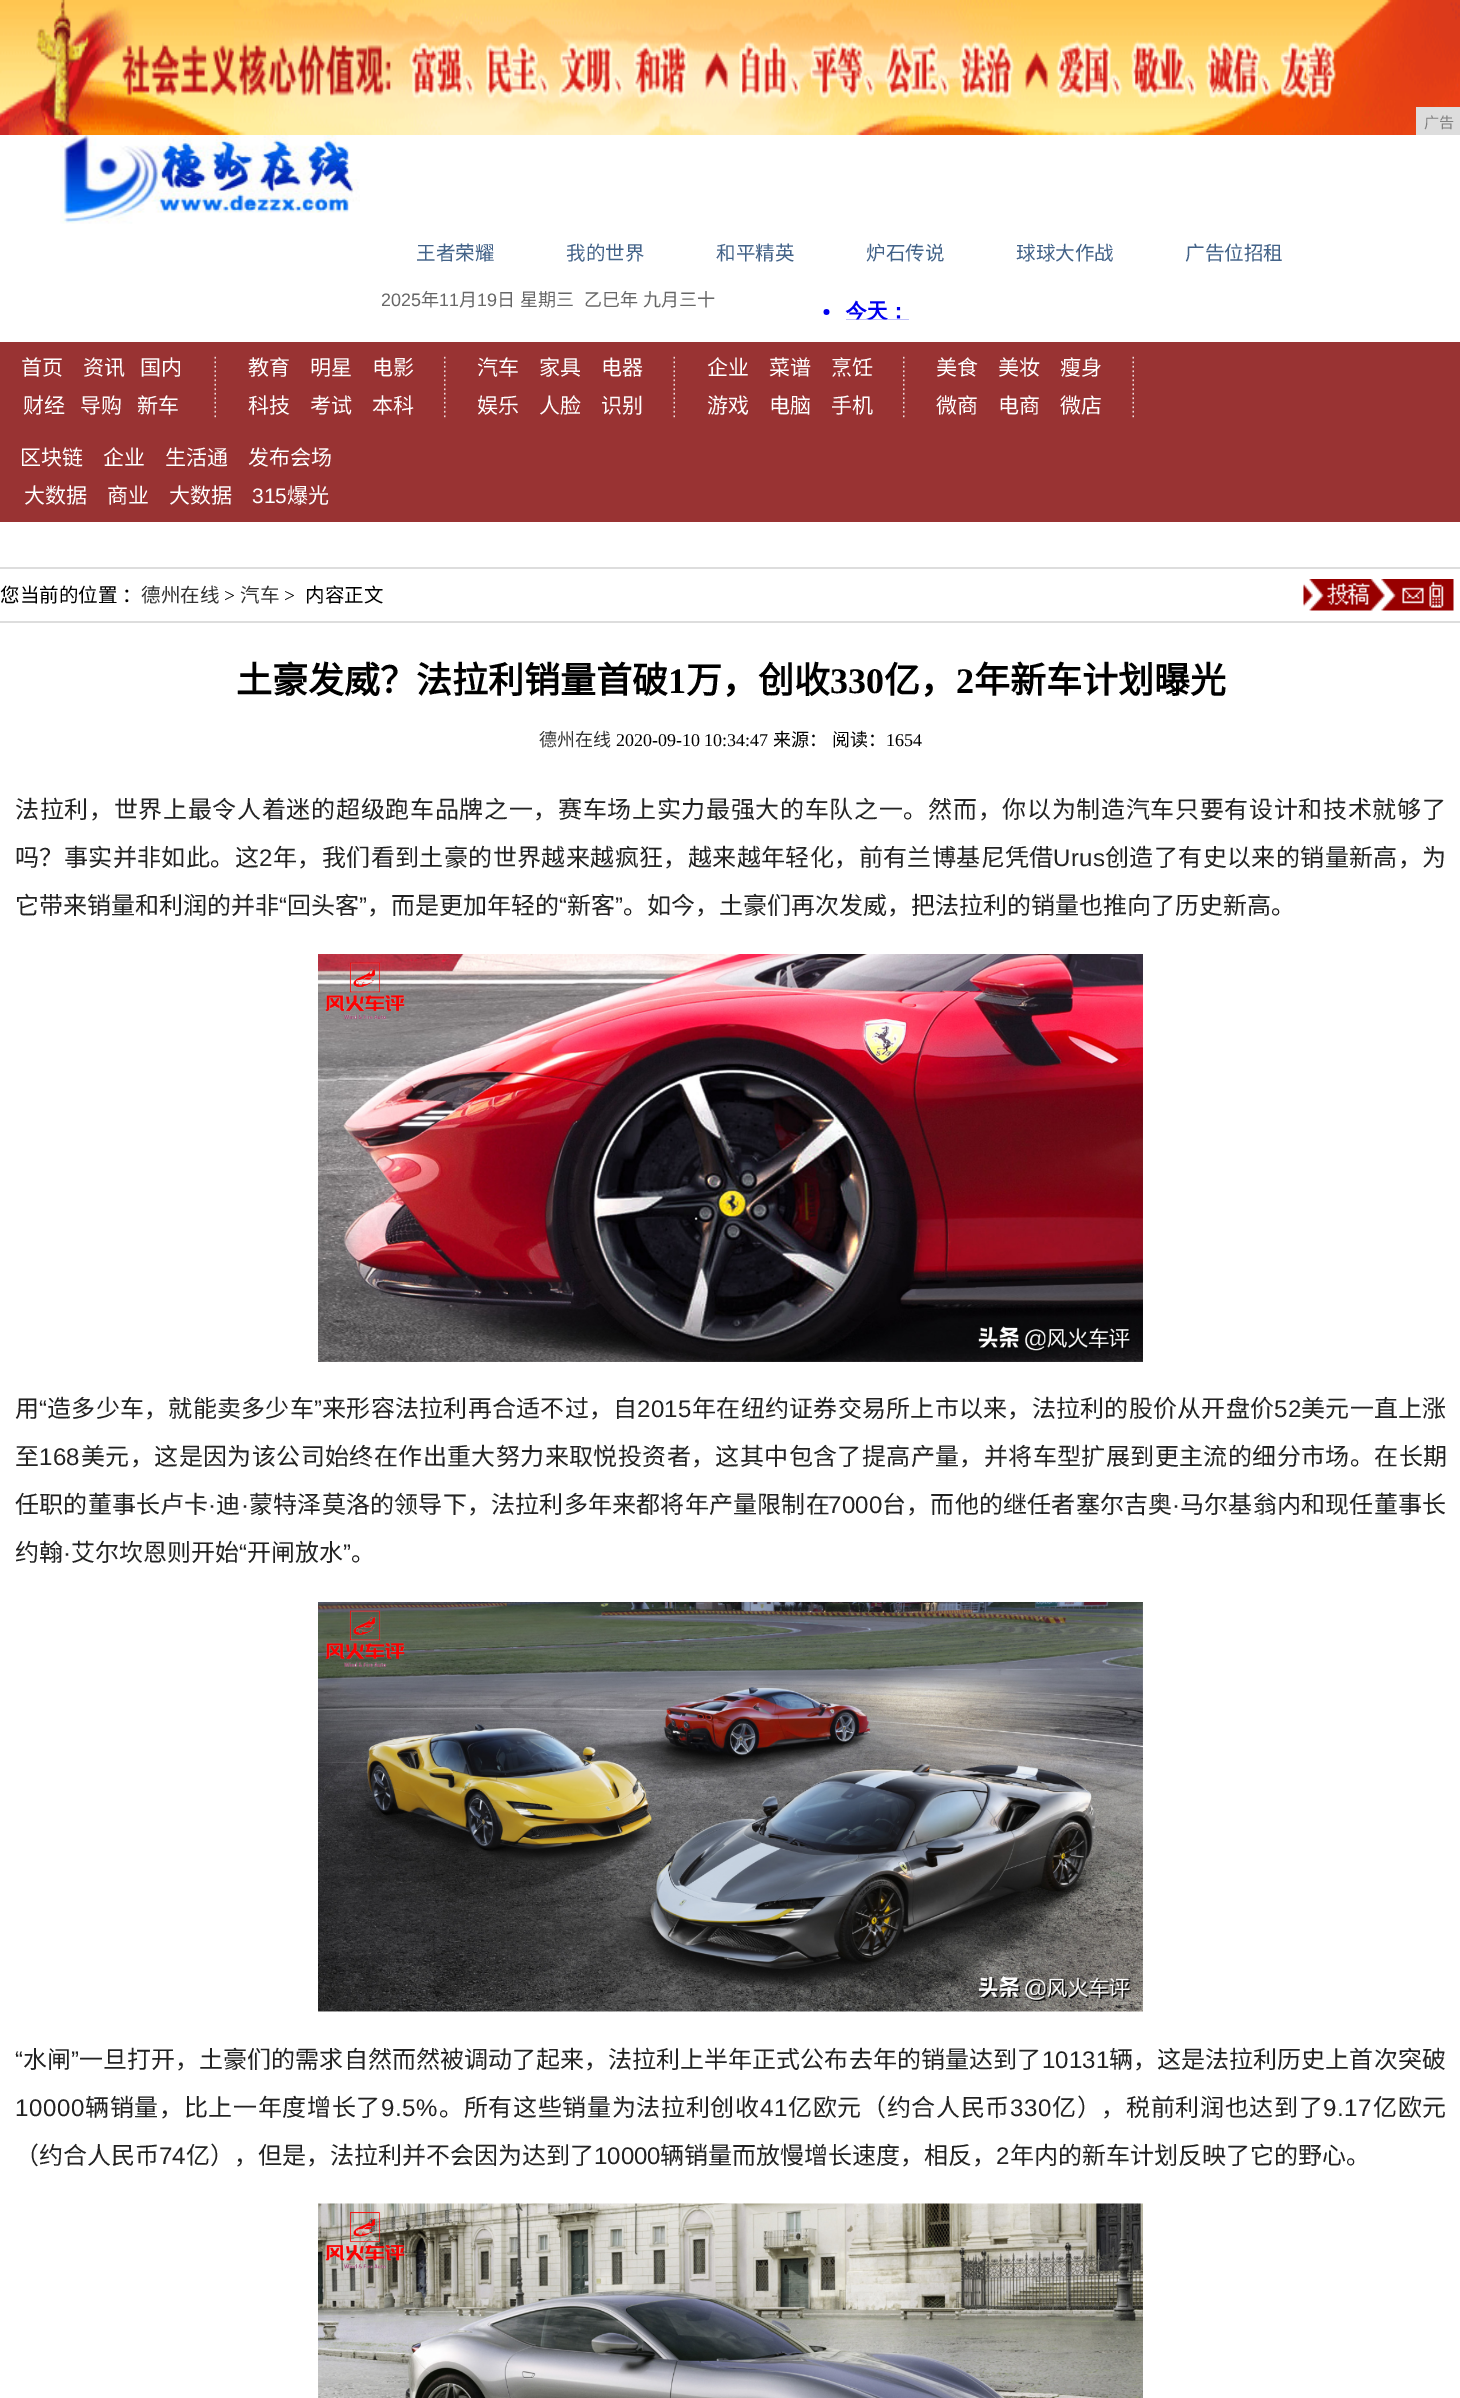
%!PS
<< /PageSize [1460 2398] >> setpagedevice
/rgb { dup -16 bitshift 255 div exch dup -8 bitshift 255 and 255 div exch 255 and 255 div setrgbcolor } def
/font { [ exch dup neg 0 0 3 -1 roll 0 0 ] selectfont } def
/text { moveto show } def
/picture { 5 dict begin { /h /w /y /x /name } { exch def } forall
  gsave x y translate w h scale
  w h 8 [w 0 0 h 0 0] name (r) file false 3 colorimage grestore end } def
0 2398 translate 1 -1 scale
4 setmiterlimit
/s1 { /NotoSansCJKSC-Regular 15 font 16#808080 rgb } def
/s2 { /NotoSansCJKSC-Regular 19.5 font 16#426288 rgb } def
/s3 { /LiberationSans-Regular 18 font 16#666666 rgb } def
/s4 { /NotoSansCJKSC-Regular 18 font 16#666666 rgb } def
/s5 { /NotoSansCJKSC-Regular 21 font 16#FFFFFF rgb } def
/s6 { /LiberationSans-Regular 21 font 16#FFFFFF rgb } def
/s7 { /NotoSansCJKSC-Regular 19.5 font 16#333333 rgb } def
/s8 { /LiberationSerif-Regular 19.5 font 16#000000 rgb } def
/s9 { /NotoSansCJKSC-Regular 19.5 font 16#000000 rgb } def
/s10 { /NotoSansCJKSC-Bold 36 font 16#000000 rgb } def
/s11 { /LiberationSerif-Bold 36 font 16#000000 rgb } def
/s12 { /NotoSansCJKSC-Regular 18 font 16#333333 rgb } def
/s13 { /LiberationSerif-Regular 18 font 16#000000 rgb } def
/s14 { /NotoSansCJKSC-Regular 18 font 16#000000 rgb } def
/s15 { /NotoSansCJKSC-Regular 24 font 16#222222 rgb } def
/s16 { /LiberationSans-Regular 24 font 16#222222 rgb } def
16#FFFFFF rgb
0 0 1460 2398 rectfill
(pic1.raw) 0 0 1460 135 picture
16#DDDDDD rgb
1416 107 44 28 rectfill
s1
(广告) 1424 128 text
(pic2.raw) 60 135 300 89 picture
s2
(王者荣耀) 416 260 text
(我的世界) 566 260 text
(和平精英) 716 260 text
(炉石传说) 866 260 text
(球球大作战) 1016 260 text
(广告位招租) 1185 260 text
s3
(2025) 381 306 text
s4
(年) 421 306 text
s3
(11) 439 306 text
s4
(月) 459 306 text
s3
(19) 477 306 text
s4
(日) 497 306 text
(星期三) 520 306 text
584 306 moveto 1 0 32 (乙巳年 九月三十) widthshow
(pic3.raw) 823 300 86 20 picture
16#993333 rgb
0 342 1460 180 rectfill
s5
(首页) 21 375 text
(资讯) 83 375 text
(国内) 140 375 text
(财经) 23 413 text
(导购) 80 413 text
(新车) 137 413 text
(pic4.raw) 214 356 2 62 picture
(教育) 248 375 text
(明星) 310 375 text
(电影) 372 375 text
(科技) 248 413 text
(考试) 310 413 text
(本科) 372 413 text
(pic5.raw) 444 356 2 62 picture
(汽车) 477 375 text
(家具) 539 375 text
(电器) 601 375 text
(娱乐) 477 413 text
(人脸) 539 413 text
(识别) 601 413 text
(pic4.raw) 673 356 2 62 picture
(企业) 707 375 text
(菜谱) 769 375 text
(烹饪) 831 375 text
(游戏) 707 413 text
(电脑) 769 413 text
(手机) 831 413 text
(pic5.raw) 903 356 2 62 picture
(美食) 936 375 text
(美妆) 998 375 text
(瘦身) 1060 375 text
(微商) 936 413 text
(电商) 998 413 text
(微店) 1060 413 text
(pic4.raw) 1132 356 2 62 picture
(区块链) 20 465 text
(企业) 103 465 text
(生活通) 165 465 text
(发布会场) 248 465 text
(大数据) 24 503 text
(商业) 107 503 text
(大数据) 169 503 text
s6
(315) 252 503 text
s5
(爆光) 287 503 text
16#DDDDDD rgb
0 567 1460 2 rectfill
0 621 1460 2 rectfill
/NotoSansCJKSC-Regular 19.5 font
16#000000 rgb
0 602 moveto 1 0 32 (您当前的位置 ：) widthshow
s7
(德州在线) 141 602 text
s8
(>) 224 602 text
s7
(汽车) 240 602 text
s8
(>) 284 602 text
s9
(内容正文) 305 602 text
(pic6.raw) 1303 579 151 32 picture
s10
(土豪发威？法拉利销量首破) 236 693 text
s11
(1) 668 693 text
s10
(万，创收) 686 693 text
s11
(330) 830 693 text
s10
(亿，) 884 693 text
s11
(2) 956 693 text
s10
(年新车计划曝光) 974 693 text
s12
(德州在线) 539 746 text
s13
(2020-09-10 10:34:47) 616 746 text
s14
(来源：) 773 746 text
(阅读：) 832 746 text
s13
(1654) 886 746 text
/NotoSansCJKSC-Regular 24 font
16#222222 rgb
15 818 moveto 0.68 0 (法拉利，世界上最令人着迷的超级跑车品牌之一，赛车场上实力最强大的车队之一。然而，你以为制造汽车只要有设计和技术就够了) ashow
15 866 moveto 0.4 0 (吗？事实并非如此。这) ashow
/LiberationSans-Regular 24 font
259 866 moveto 0.4 0 (2) ashow
/NotoSansCJKSC-Regular 24 font
273 866 moveto 0.4 0 (年，我们看到土豪的世界越来越疯狂，越来越年轻化，前有兰博基尼凭借) ashow
/LiberationSans-Regular 24 font
1053 866 moveto 0.4 0 (Urus) ashow
/NotoSansCJKSC-Regular 24 font
1105 866 moveto 0.4 0 (创造了有史以来的销量新高，为) ashow
(它带来销量和利润的并非) 15 914 text
s16
(“) 279 914 text
s15
(回头客) 287 914 text
s16
(”) 359 914 text
s15
(，而是更加年轻的) 367 914 text
s16
(“) 559 914 text
s15
(新客) 567 914 text
s16
(”) 615 914 text
s15
(。如今，土豪们再次发威，把法拉利的销量也推向了历史新高。) 623 914 text
(pic7.raw) 318 954 825 408 picture
15 1417 moveto 0.25 0 (用) ashow
/LiberationSans-Regular 24 font
39 1417 moveto 0.25 0 (“) ashow
/NotoSansCJKSC-Regular 24 font
47 1417 moveto 0.25 0 (造多少车，就能卖多少车) ashow
/LiberationSans-Regular 24 font
314 1417 moveto 0.25 0 (”) ashow
/NotoSansCJKSC-Regular 24 font
322 1417 moveto 0.25 0 (来形容法拉利再合适不过，自) ashow
/LiberationSans-Regular 24 font
637 1417 moveto 0.25 0 (2015) ashow
/NotoSansCJKSC-Regular 24 font
692 1417 moveto 0.25 0 (年在纽约证券交易所上市以来，法拉利的股价从开盘价) ashow
/LiberationSans-Regular 24 font
1274 1417 moveto 0.25 0 (52) ashow
/NotoSansCJKSC-Regular 24 font
1301 1417 moveto 0.25 0 (美元一直上涨) ashow
15 1465 moveto 0.4 0 (至) ashow
/LiberationSans-Regular 24 font
39 1465 moveto 0.4 0 (168) ashow
/NotoSansCJKSC-Regular 24 font
81 1465 moveto 0.4 0 (美元，这是因为该公司始终在作出重大努力来取悦投资者，这其中包含了提高产量，并将车型扩展到更主流的细分市场。在长期) ashow
15 1513 moveto 0.2 0 (任职的董事长卢卡) ashow
/LiberationSans-Regular 24 font
208 1513 moveto 0.2 0 (·) ashow
/NotoSansCJKSC-Regular 24 font
216 1513 moveto 0.2 0 (迪) ashow
/LiberationSans-Regular 24 font
241 1513 moveto 0.2 0 (·) ashow
/NotoSansCJKSC-Regular 24 font
249 1513 moveto 0.2 0 (蒙特泽莫洛的领导下，法拉利多年来都将年产量限制在) ashow
/LiberationSans-Regular 24 font
828 1513 moveto 0.2 0 (7000) ashow
/NotoSansCJKSC-Regular 24 font
882 1513 moveto 0.2 0 (台，而他的继任者塞尔吉奥) ashow
/LiberationSans-Regular 24 font
1172 1513 moveto 0.2 0 (·) ashow
/NotoSansCJKSC-Regular 24 font
1180 1513 moveto 0.2 0 (马尔基翁内和现任董事长) ashow
(约翰) 15 1561 text
(艾尔坎恩则开始) 71 1561 text
s16
(“) 239 1561 text
s15
(开闸放水) 247 1561 text
s16
(”) 343 1561 text
(·) 63 1561 text
s15
(。) 351 1561 text
(pic8.raw) 318 1602 825 410 picture
/LiberationSans-Regular 24 font
15 2068 moveto 0.05 0 (“) ashow
/NotoSansCJKSC-Regular 24 font
23 2068 moveto 0.05 0 (水闸) ashow
/LiberationSans-Regular 24 font
71 2068 moveto 0.05 0 (”) ashow
/NotoSansCJKSC-Regular 24 font
79 2068 moveto 0.05 0 (一旦打开，土豪们的需求自然而然被调动了起来，法拉利上半年正式公布去年的销量达到了) ashow
/LiberationSans-Regular 24 font
1042 2068 moveto 0.05 0 (10131) ashow
/NotoSansCJKSC-Regular 24 font
1109 2068 moveto 0.05 0 (辆，这是法拉利历史上首次突破) ashow
/LiberationSans-Regular 24 font
15 2116 moveto 0.68 0 (10000) ashow
/NotoSansCJKSC-Regular 24 font
85 2116 moveto 0.68 0 (辆销量，比上一年度增长了) ashow
/LiberationSans-Regular 24 font
381 2116 moveto 0.68 0 (9.5%) ashow
/NotoSansCJKSC-Regular 24 font
439 2116 moveto 0.68 0 (。所有这些销量为法拉利创收) ashow
/LiberationSans-Regular 24 font
760 2116 moveto 0.68 0 (41) ashow
/NotoSansCJKSC-Regular 24 font
788 2116 moveto 0.68 0 (亿欧元（约合人民币) ashow
/LiberationSans-Regular 24 font
1010 2116 moveto 0.68 0 (330) ashow
/NotoSansCJKSC-Regular 24 font
1052 2116 moveto 0.68 0 (亿），税前利润也达到了) ashow
/LiberationSans-Regular 24 font
1323 2116 moveto 0.68 0 (9.17) ashow
/NotoSansCJKSC-Regular 24 font
1373 2116 moveto 0.68 0 (亿欧元) ashow
(（约合人民币) 15 2164 text
s16
(74) 159 2164 text
s15
(亿），但是，法拉利并不会因为达到了) 186 2164 text
s16
(10000) 594 2164 text
s15
(辆销量而放慢增长速度，相反，) 660 2164 text
s16
(2) 996 2164 text
s15
(年内的新车计划反映了它的野心。) 1010 2164 text
(pic9.raw) 318 2203 825 195 picture
showpage
